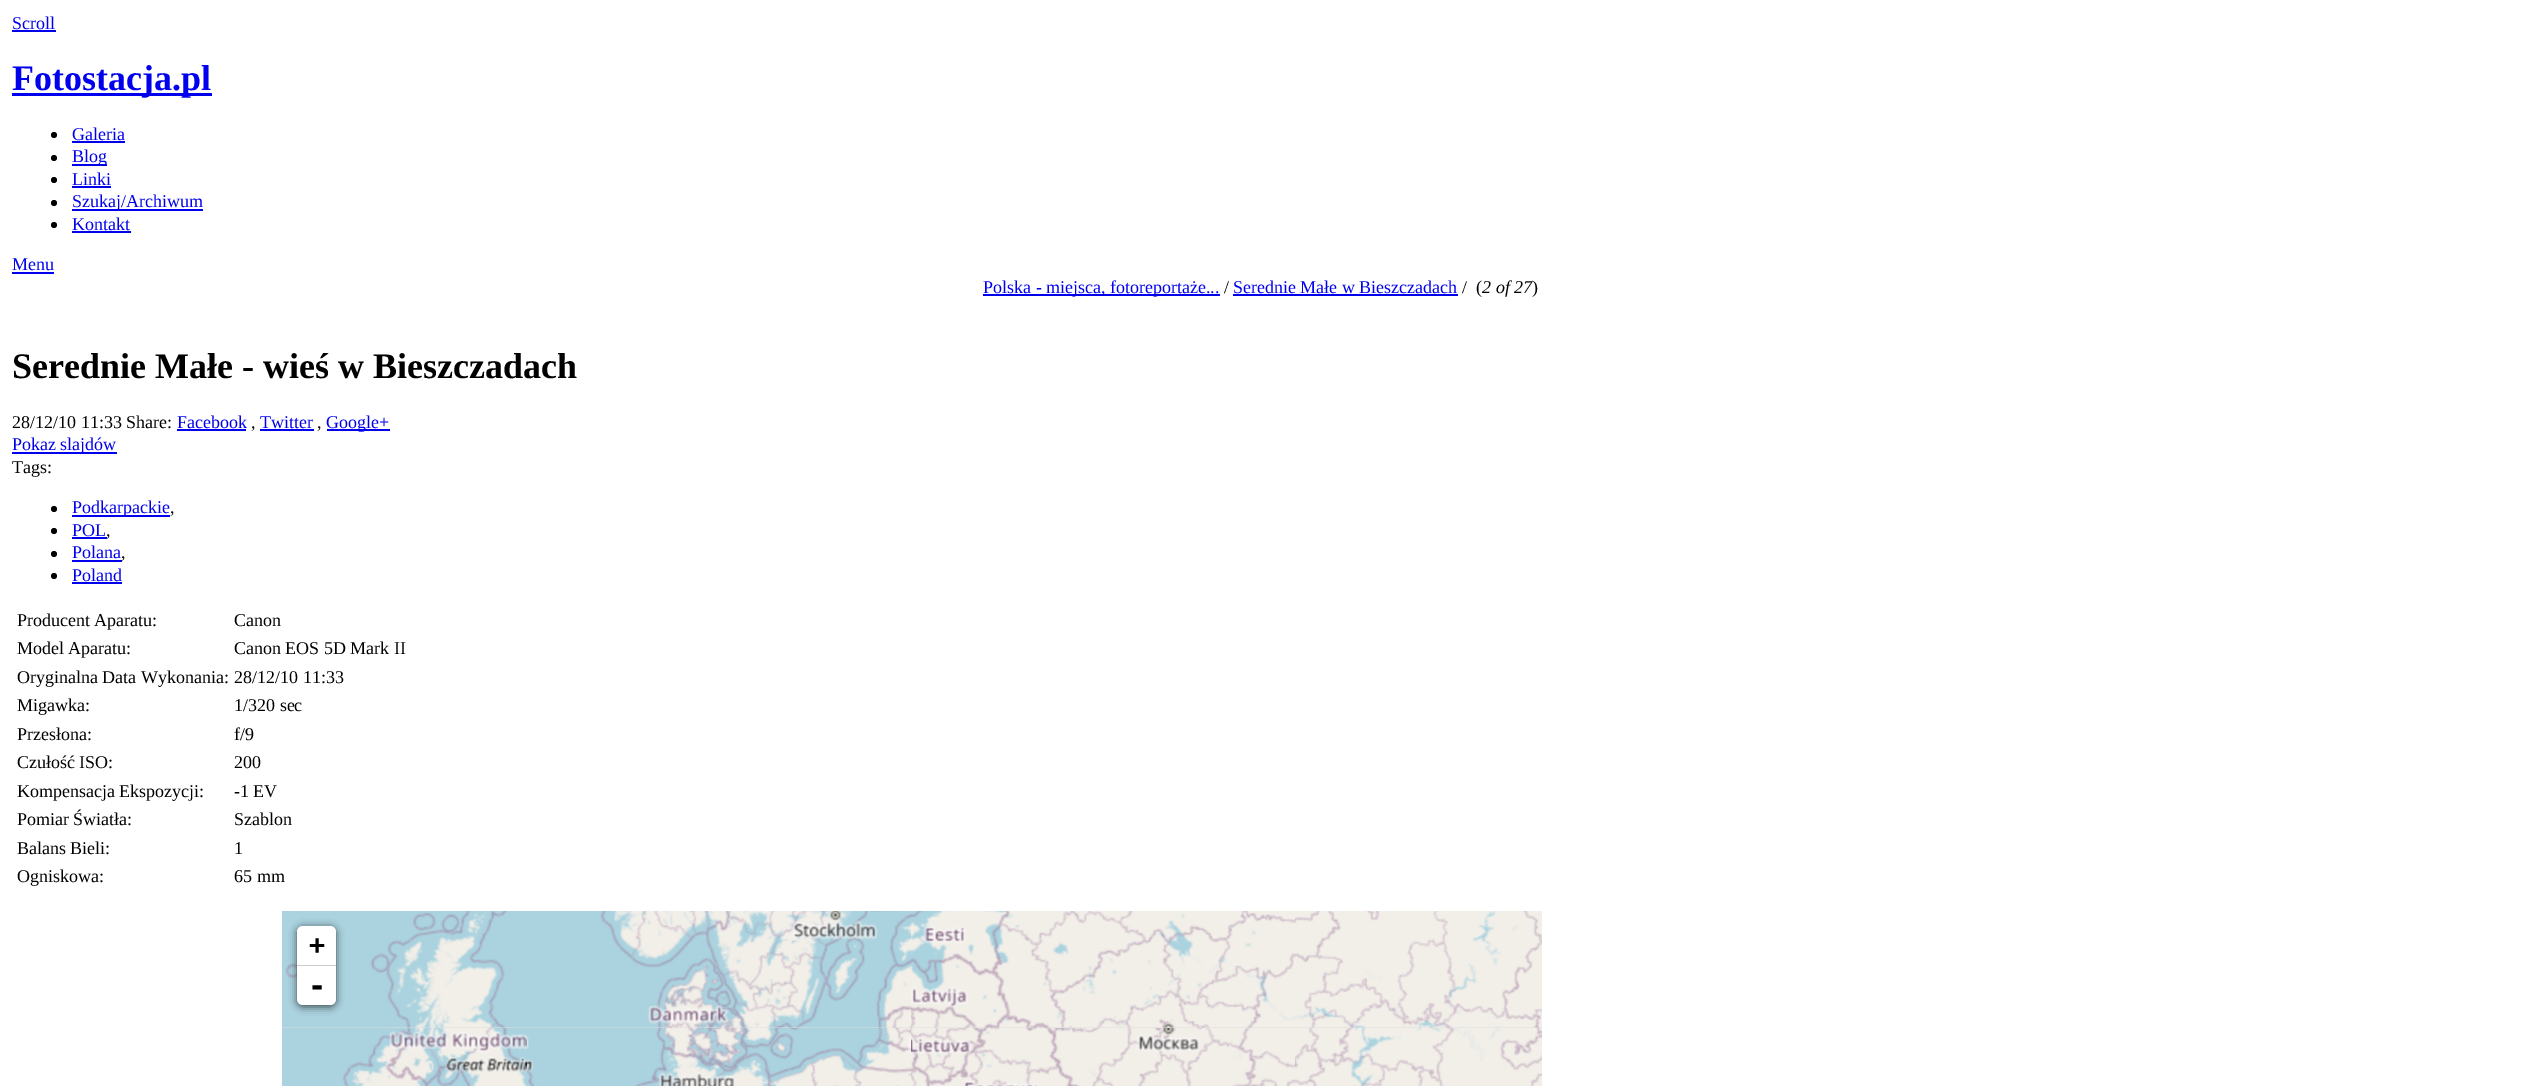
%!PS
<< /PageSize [2521 1086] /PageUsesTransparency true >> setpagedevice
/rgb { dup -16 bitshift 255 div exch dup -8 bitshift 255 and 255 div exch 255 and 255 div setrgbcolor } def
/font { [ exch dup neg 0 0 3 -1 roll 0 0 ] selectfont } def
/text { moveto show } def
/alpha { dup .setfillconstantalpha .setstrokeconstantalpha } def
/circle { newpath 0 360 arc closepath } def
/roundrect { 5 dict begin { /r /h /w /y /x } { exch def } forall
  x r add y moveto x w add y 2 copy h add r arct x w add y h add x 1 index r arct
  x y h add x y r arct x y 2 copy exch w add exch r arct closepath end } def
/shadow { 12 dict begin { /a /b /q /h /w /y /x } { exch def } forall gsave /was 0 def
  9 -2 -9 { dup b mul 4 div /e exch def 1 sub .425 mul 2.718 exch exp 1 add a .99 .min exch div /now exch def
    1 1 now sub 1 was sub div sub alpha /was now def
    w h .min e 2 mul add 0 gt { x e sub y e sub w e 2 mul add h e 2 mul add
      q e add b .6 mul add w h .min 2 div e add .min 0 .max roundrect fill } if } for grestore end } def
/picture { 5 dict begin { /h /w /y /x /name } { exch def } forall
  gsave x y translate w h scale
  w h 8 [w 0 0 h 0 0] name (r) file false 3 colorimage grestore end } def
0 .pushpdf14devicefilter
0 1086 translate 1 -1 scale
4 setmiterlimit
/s1 { /LiberationSerif-Regular 18 font 16#0000EE rgb } def
/s2 { /LiberationSerif-Bold 36 font 16#0000EE rgb } def
/s3 { /LiberationSerif-Regular 18 font 16#000000 rgb } def
/s4 { /LiberationSerif-Italic 18 font 16#000000 rgb } def
/s5 { /LiberationSerif-Bold 36 font 16#000000 rgb } def
/s6 { /DejaVuSansMono-Bold 27 font 16#000000 rgb } def
/s7 { /DejaVuSansMono-Bold 30 font 16#000000 rgb } def
16#FFFFFF rgb
0 0 2521 1086 rectfill
s1
(Scroll) 12 29 text
12 30 44 2 rectfill
12 93 200 3 rectfill
s2
(Fotostacja.pl) 12 90 text
16#000000 rgb
54 135 3 circle fill
s1
(Galeria) 72 140 text
72 141 53 2 rectfill
16#000000 rgb
54 158 3 circle fill
16#0000EE rgb
72 164 35 2 rectfill
(Blog) 72 162 text
16#000000 rgb
54 180 3 circle fill
s1
(Linki) 72 185 text
72 186 39 2 rectfill
16#000000 rgb
54 203 3 circle fill
16#0000EE rgb
72 209 131 2 rectfill
(Szukaj/Archiwum) 72 207 text
16#000000 rgb
54 225 3 circle fill
s1
(Kontakt) 72 230 text
72 231 59 2 rectfill
(Menu) 12 270 text
12 272 42 2 rectfill
983 294 237 2 rectfill
(Polska - miejsca, fotoreportaże...) 983 293 text
s3
(/) 1224 293 text
s1
(Serednie Małe w Bieszczadach) 1233 293 text
1233 294 225 2 rectfill
s3
(/) 1462 293 text
(\() 1476 293 text
s4
(2 of 27) 1482 293 text
s3
(\)) 1532 293 text
s5
(Serednie Małe - wieś w Bieszczadach) 12 378 text
s3
(28/12/10 11:33 Share:) 12 428 text
s1
(Facebook) 177 428 text
s3
(,) 251 428 text
16#0000EE rgb
177 429 69 2 rectfill
(Twitter) 260 428 text
s3
(,) 317 428 text
16#0000EE rgb
260 429 54 2 rectfill
327 429 63 2 rectfill
(Google+) 326 428 text
12 452 105 2 rectfill
(Pokaz slajdów) 12 450 text
s3
(Tags:) 12 473 text
54 509 3 circle fill
16#0000EE rgb
72 515 98 2 rectfill
(Podkarpackie) 72 513 text
s3
(,) 170 513 text
54 531 3 circle fill
s1
(POL) 72 536 text
72 537 35 2 rectfill
s3
(,) 106 536 text
54 554 3 circle fill
s1
(Polana) 72 558 text
72 560 50 2 rectfill
s3
(,) 121 558 text
54 576 3 circle fill
s1
(Poland) 72 581 text
72 582 50 2 rectfill
s3
(Producent Aparatu:) 17 626 text
(Canon) 234 626 text
(Model Aparatu:) 17 654 text
(Canon EOS 5D Mark II) 234 654 text
(Oryginalna Data Wykonania:) 17 683 text
(28/12/10 11:33) 234 683 text
(Migawka:) 17 711 text
(1/320 sec) 234 711 text
(Przesłona:) 17 740 text
(f/9) 234 740 text
(Czułość ISO:) 17 768 text
(200) 234 768 text
(Kompensacja Ekspozycji:) 17 797 text
(-1 EV) 234 797 text
(Pomiar Światła:) 17 825 text
(Szablon) 234 825 text
(Balans Bieli:) 17 854 text
(1) 234 854 text
(Ogniskowa:) 17 882 text
(65 mm) 234 882 text
16#DDDDDD rgb
282 1027 1260 1 rectfill
(pic1.raw) 282 911 245 117 picture
(pic2.raw) 527 911 384 117 picture
(pic3.raw) 911 911 384 117 picture
(pic4.raw) 1295 911 247 117 picture
(pic5.raw) 282 1028 245 58 picture
(pic6.raw) 527 1028 384 58 picture
(pic7.raw) 911 1028 384 58 picture
(pic8.raw) 1295 1028 247 58 picture
16#000000 rgb
297 927 39 80 6 4 0.65 shadow
16#FFFFFF rgb
303 926 moveto 330 926 lineto 333.5 926 336 928.5 336 932 curveto 336 966 lineto 297 966 lineto 297 932 lineto 297 928.5 299.5 926 303 926 curveto closepath fill
16#CCCCCC rgb
297 965 39 1 rectfill
s6
(+) 309 954 text
16#FFFFFF rgb
297 966 moveto 336 966 lineto 336 999 lineto 336 1002.5 333.5 1005 330 1005 curveto 303 1005 lineto 299.5 1005 297 1002.5 297 999 curveto closepath fill
s7
(-) 308 996 text
.poppdf14devicefilter showpage
